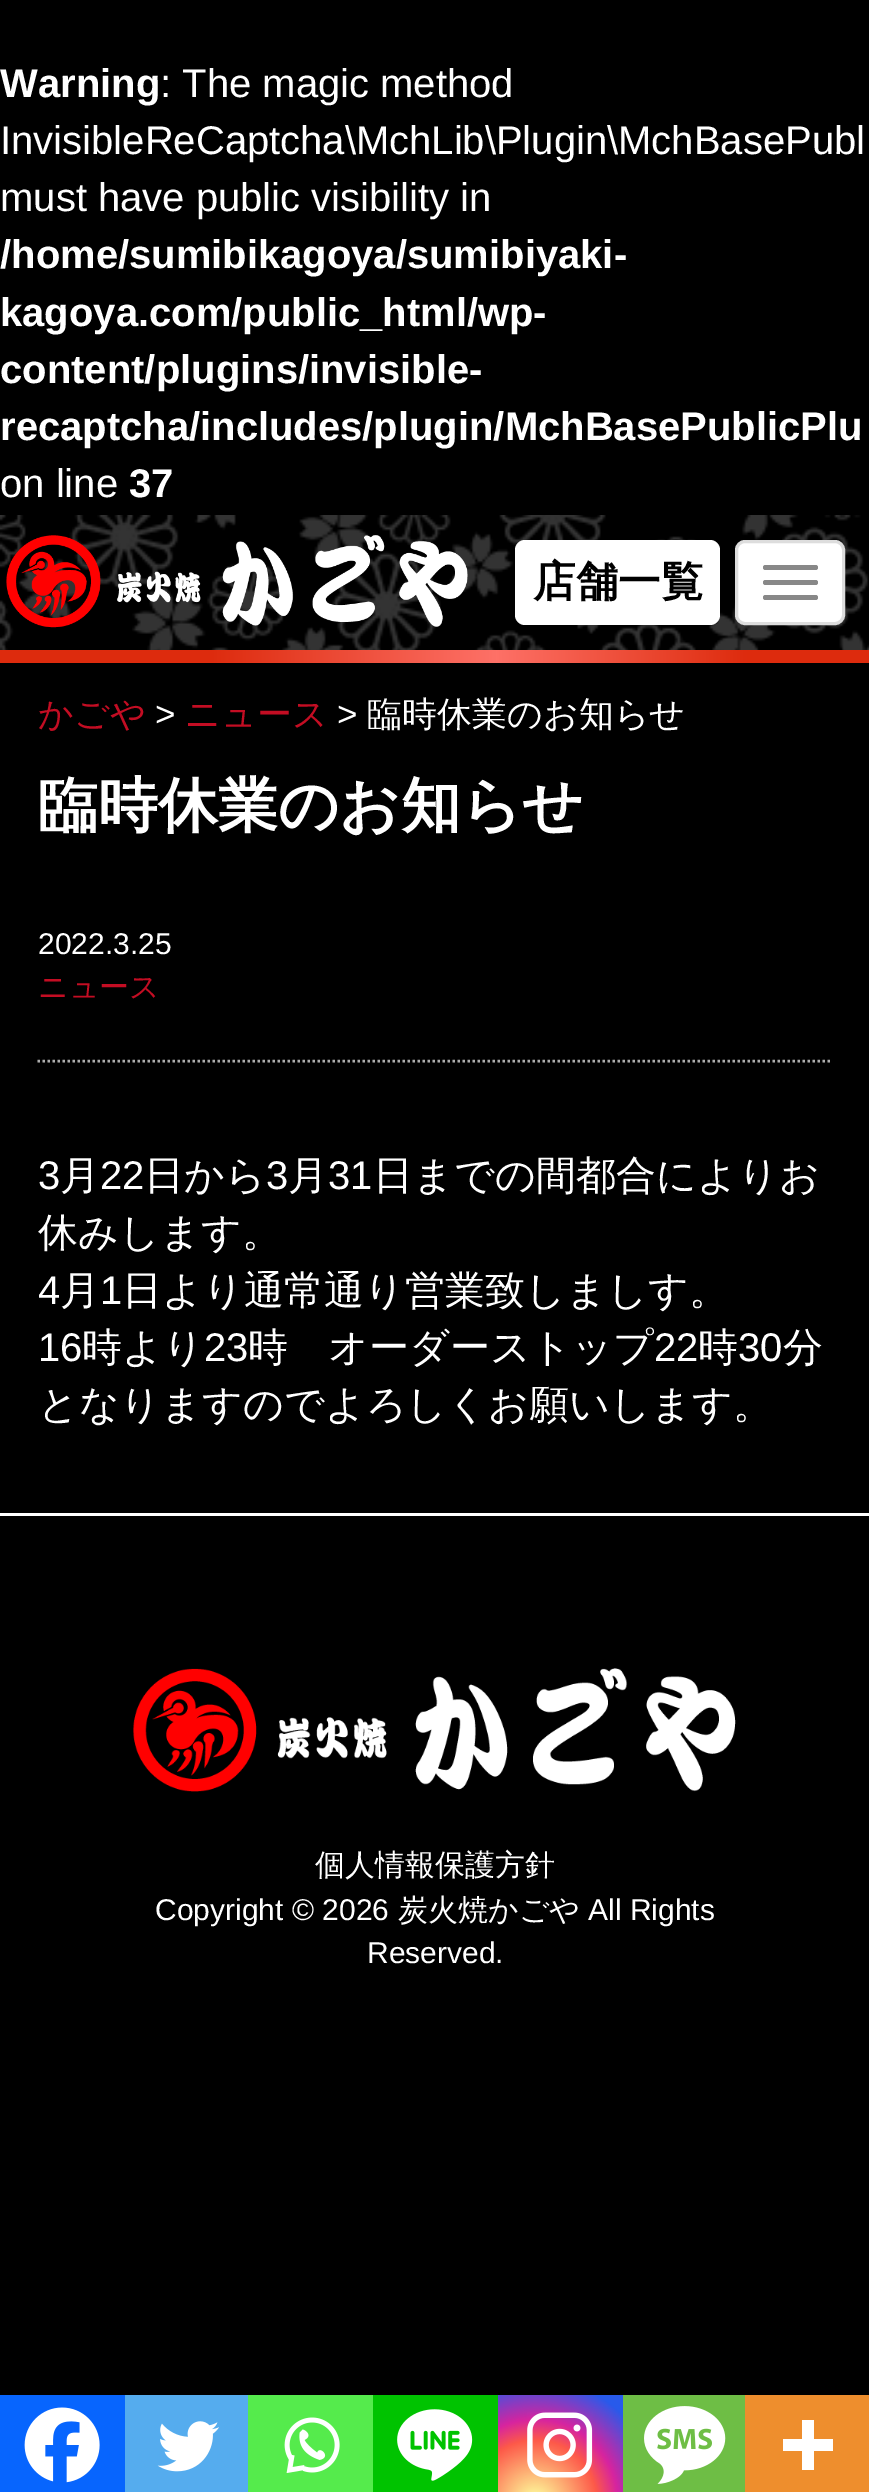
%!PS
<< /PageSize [869 2492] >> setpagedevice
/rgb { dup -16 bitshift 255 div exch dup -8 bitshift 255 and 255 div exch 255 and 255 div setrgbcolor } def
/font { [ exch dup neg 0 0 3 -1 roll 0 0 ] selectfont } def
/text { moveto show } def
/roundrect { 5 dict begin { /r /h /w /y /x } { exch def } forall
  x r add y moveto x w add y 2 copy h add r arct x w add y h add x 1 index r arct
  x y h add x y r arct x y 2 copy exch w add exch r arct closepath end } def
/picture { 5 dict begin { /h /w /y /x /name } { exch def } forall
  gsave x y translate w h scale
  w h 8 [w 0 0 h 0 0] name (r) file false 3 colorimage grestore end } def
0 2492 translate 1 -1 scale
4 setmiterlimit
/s1 { /LiberationSans-Bold 40 font 16#FFFFFF rgb } def
/s2 { /LiberationSans-Regular 40 font 16#FFFFFF rgb } def
/s3 { /WenQuanYiZenHei-Bold 42.5 font 16#000000 rgb } def
/s4 { /WenQuanYiZenHei-Medium 35 font 16#C30D23 rgb } def
/s5 { /LiberationSans-Regular 35 font 16#FFFFFF rgb } def
/s6 { /WenQuanYiZenHei-Medium 35 font 16#FFFFFF rgb } def
/s7 { /WenQuanYiZenHei-Bold 60 font 16#FFFFFF rgb } def
/s8 { /LiberationSans-Regular 30 font 16#FFFFFF rgb } def
/s9 { /WenQuanYiZenHei-Medium 30 font 16#C30D23 rgb } def
/s10 { /WenQuanYiZenHei-Medium 40 font 16#FFFFFF rgb } def
/s11 { /WenQuanYiZenHei-Medium 30 font 16#FFFFFF rgb } def
16#000000 rgb
0 0 869 2492 rectfill
s1
(Warning) 0 97 text
s2
(: The magic method) 160 97 text
(InvisibleReCaptcha\\MchLib\\Plugin\\MchBasePubl) 0 154 text
(must have public visibility in) 0 211 text
s1
(/home/sumibikagoya/sumibiyaki-) 0 268 text
(kagoya.com/public_html/wp-) 0 326 text
(content/plugins/invisible-) 0 383 text
(recaptcha/includes/plugin/MchBasePublicPlu) 0 440 text
s2
(on line) 0 497 text
s1
(37) 129 497 text
(pic1.raw) 0 515 869 135 picture
(pic2.raw) 6 535 462 93 picture
515 540 205 85 10 roundrect fill
s3
(店舗一覧) 533 596 text
16#FFFFFF rgb
736.5 541.5 107 82 8.5 roundrect gsave fill grestore
16#DDDDDD rgb
3 setlinewidth
stroke
16#888888 rgb
763 565 55 5 2.5 roundrect fill
763 580 55 5 2.5 roundrect fill
763 595 55 5 2.5 roundrect fill
gsave 0 650 moveto 869 650 lineto 869 663 lineto 0 663 lineto closepath clip newpath
<< /ShadingType 2 /ColorSpace /DeviceRGB /Coords [0 656 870 656] /Extend [true true] /Function << /FunctionType 3 /Domain [0 1] /Functions [<< /FunctionType 2 /Domain [0 1] /C0 [0.867 0.169 0.051] /C1 [0.867 0.169 0.051] /N 1 >> << /FunctionType 2 /Domain [0 1] /C0 [0.867 0.169 0.051] /C1 [0.996 0.443 0.404] /N 1 >> << /FunctionType 2 /Domain [0 1] /C0 [0.996 0.443 0.404] /C1 [0.867 0.169 0.051] /N 1 >> << /FunctionType 2 /Domain [0 1] /C0 [0.867 0.169 0.051] /C1 [0.867 0.169 0.051] /N 1 >>] /Bounds [0.24 0.57 0.86] /Encode [0 1 0 1 0 1 0 1] >> >> shfill grestore
s4
(かごや) 38 726 text
s5
(>) 155 726 text
s4
(ニュース) 185 726 text
s5
(>) 337 726 text
s6
(臨時休業のお知らせ) 367 726 text
s7
(臨時休業のお知らせ) 38 826 text
16#AEAEAE rgb
2.5 setlinewidth
[2.5 2.5] 0 setdash
37.5 1061 moveto 832.5 1061 lineto stroke
s8
(2022.3.25) 38 954 text
s9
(ニュース) 38 997 text
s2
(3) 38 1189 text
s10
(月) 60 1189 text
s2
(22) 100 1189 text
s10
(日から) 144 1189 text
s2
(3) 266 1189 text
s10
(月) 288 1189 text
s2
(31) 328 1189 text
s10
(日までの間都合によりお) 373 1189 text
(休みします。) 38 1246 text
s2
(4) 38 1304 text
s10
(月) 60 1304 text
s2
(1) 100 1304 text
s10
(日より通常通り営業致しましす。) 122 1304 text
s2
(16) 38 1361 text
s10
(時より) 82 1361 text
s2
(23) 204 1361 text
s10
(時　オーダーストップ) 248 1361 text
s2
(22) 654 1361 text
s10
(時) 698 1361 text
s2
(30) 738 1361 text
s10
(分) 783 1361 text
(となりますのでよろしくお願いします。) 38 1418 text
0 1513 869 3 rectfill
(pic3.raw) 133 1668 603 124 picture
s11
(個人情報保護方針) 315 1875 text
s8
(Copyright © 2026) 155 1920 text
s11
(炭火焼かごや) 398 1920 text
s8
(All Rights) 588 1920 text
(Reserved.) 367 1963 text
16#0765FE rgb
0 2395 125 97 rectfill
(pic4.raw) 24 2407 76 76 picture
16#55ACEE rgb
125 2395 123 97 rectfill
(pic5.raw) 157 2421 62 51 picture
16#55EB4C rgb
248 2395 125 97 rectfill
(pic6.raw) 284 2417 56 56 picture
16#00C300 rgb
373 2395 125 97 rectfill
(pic7.raw) 397 2409 76 72 picture
gsave 498 2395 moveto 623 2395 lineto 623 2492 lineto 498 2492 lineto closepath clip newpath 535 2502 translate 138 138 scale
<< /ShadingType 3 /ColorSpace /DeviceRGB /Coords [0 0 0 0 0 1] /Extend [true true] /Function << /FunctionType 3 /Domain [0 1] /Functions [<< /FunctionType 2 /Domain [0 1] /C0 [0.992 0.957 0.592] /C1 [0.992 0.957 0.592] /N 1 >> << /FunctionType 2 /Domain [0 1] /C0 [0.992 0.957 0.592] /C1 [0.992 0.349 0.286] /N 1 >> << /FunctionType 2 /Domain [0 1] /C0 [0.992 0.349 0.286] /C1 [0.839 0.141 0.624] /N 1 >> << /FunctionType 2 /Domain [0 1] /C0 [0.839 0.141 0.624] /C1 [0.157 0.353 0.922] /N 1 >> << /FunctionType 2 /Domain [0 1] /C0 [0.157 0.353 0.922] /C1 [0.157 0.353 0.922] /N 1 >>] /Bounds [0.05 0.45 0.6 0.9] /Encode [0 1 0 1 0 1 0 1 0 1] >> >> shfill grestore
(pic8.raw) 527 2412 66 66 picture
16#6EBE45 rgb
623 2395 122 97 rectfill
(pic9.raw) 644 2406 82 78 picture
16#EE8E2D rgb
745 2395 124 97 rectfill
16#FFFFFF rgb
814 2439 moveto 814 2420 lineto 802 2420 lineto 802 2439 lineto 783 2439 lineto 783 2451 lineto 802 2451 lineto 802 2470 lineto 814 2470 lineto 814 2451 lineto 833 2451 lineto 833 2439 lineto closepath eofill
showpage
